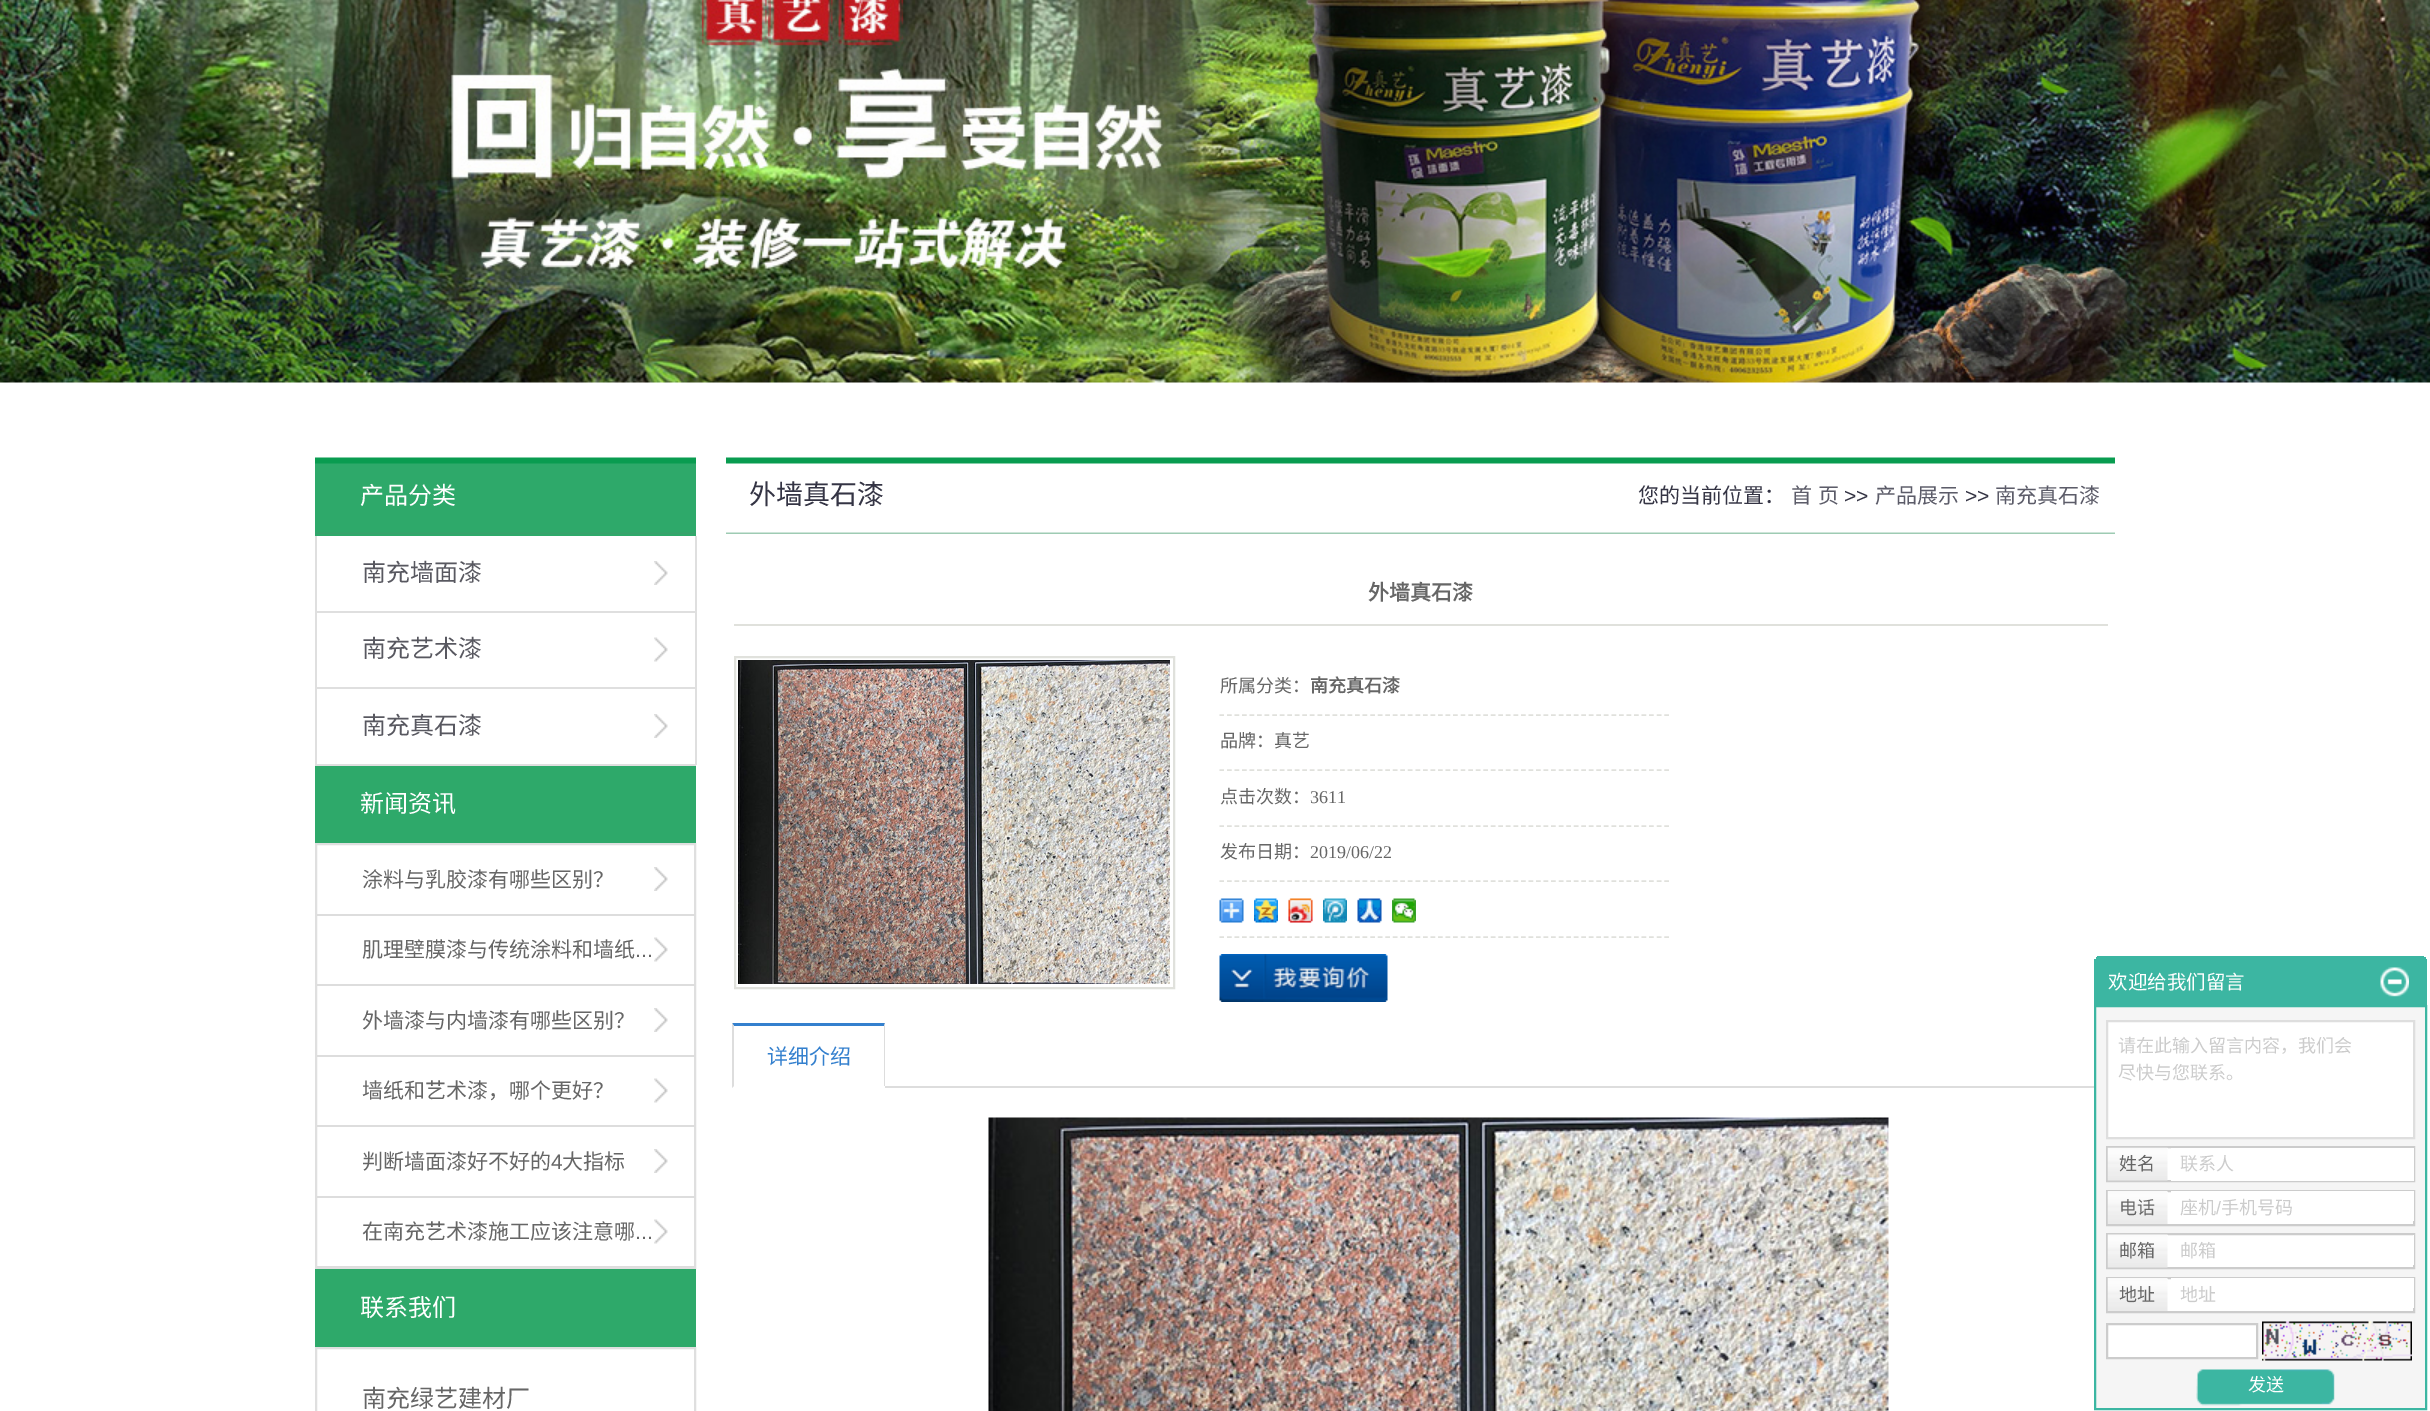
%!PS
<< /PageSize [2430 1411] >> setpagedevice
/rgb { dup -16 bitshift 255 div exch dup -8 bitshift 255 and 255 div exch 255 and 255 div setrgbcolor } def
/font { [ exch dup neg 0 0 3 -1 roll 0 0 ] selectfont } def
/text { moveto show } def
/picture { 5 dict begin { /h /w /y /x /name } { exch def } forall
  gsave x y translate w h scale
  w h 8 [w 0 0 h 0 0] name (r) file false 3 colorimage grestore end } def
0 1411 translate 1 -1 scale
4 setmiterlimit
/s1 { /NotoSansCJKSC-Regular 24 font 16#FFFFFF rgb } def
/s2 { /NotoSansCJKSC-Regular 24 font 16#585860 rgb } def
/s3 { /NotoSansCJKSC-Regular 21 font 16#666666 rgb } def
/s4 { /LiberationSans-Regular 21 font 16#666666 rgb } def
/s5 { /NotoSansCJKSC-Regular 24 font 16#666666 rgb } def
/s6 { /NotoSansCJKSC-Regular 27 font 16#343444 rgb } def
/s7 { /NotoSansCJKSC-Regular 21 font 16#343444 rgb } def
/s8 { /LiberationSans-Regular 21 font 16#343444 rgb } def
/s9 { /NotoSansCJKSC-Regular 21 font 16#5C5C69 rgb } def
/s10 { /NotoSansCJKSC-Bold 21 font 16#666666 rgb } def
/s11 { /NotoSansCJKSC-Regular 18 font 16#666666 rgb } def
/s12 { /NotoSansCJKSC-Bold 18 font 16#666666 rgb } def
/s13 { /LiberationSerif-Regular 18 font 16#666666 rgb } def
/s14 { /NotoSansCJKSC-Regular 21 font 16#3480CE rgb } def
/s15 { /NotoSansCJKSC-Regular 19.5 font 16#FFFFFF rgb } def
/s16 { /NotoSansCJKSC-Regular 18 font 16#CCCCCC rgb } def
/s17 { /LiberationSans-Regular 18 font 16#CCCCCC rgb } def
/s18 { /NotoSansCJKSC-Regular 18 font 16#FFFFFF rgb } def
16#FFFFFF rgb
0 0 2430 1411 rectfill
(pic1.raw) 0 0 2430 383 picture
16#2EA96A rgb
315 463 381 73 rectfill
(pic2.raw) 315 457 381 77 picture
s1
(产品分类) 360 504 text
(pic3.raw) 654 561 14 24 picture
16#DFDFDF rgb
695 536 2 76 rectfill
315 611 381 2 rectfill
315 536 2 76 rectfill
s2
(南充墙面漆) 362 581 text
(pic4.raw) 654 637 14 25 picture
16#DFDFDF rgb
695 612 2 153 rectfill
315 687 381 2 rectfill
315 612 2 77 rectfill
s2
(南充艺术漆) 362 657 text
(pic3.raw) 654 714 14 24 picture
16#DFDFDF rgb
315 764 381 2 rectfill
315 689 2 76 rectfill
s2
(南充真石漆) 362 734 text
16#2EA96A rgb
315 766 381 77 rectfill
s1
(新闻资讯) 360 812 text
16#DFDFDF rgb
2 setlinewidth
316 844 379 424 rectstroke
(pic3.raw) 654 867 14 24 picture
16#DDDDDD rgb
317 914 378 2 rectfill
s3
(涂料与乳胶漆有哪些区别？) 362 887 text
(pic4.raw) 654 937 14 25 picture
16#DDDDDD rgb
317 984 378 2 rectfill
s3
(肌理壁膜漆与传统涂料和墙纸) 362 957 text
s4
(...) 635 957 text
(pic3.raw) 654 1008 14 24 picture
16#DDDDDD rgb
317 1055 378 2 rectfill
s3
(外墙漆与内墙漆有哪些区别？) 362 1028 text
(pic4.raw) 654 1078 14 25 picture
16#DDDDDD rgb
317 1125 378 2 rectfill
s3
(墙纸和艺术漆，哪个更好？) 362 1098 text
(pic3.raw) 654 1149 14 24 picture
16#DDDDDD rgb
317 1196 378 2 rectfill
s3
(判断墙面漆好不好的) 362 1169 text
s4
(4) 551 1169 text
s3
(大指标) 562 1169 text
(pic4.raw) 654 1219 14 25 picture
16#DDDDDD rgb
317 1266 378 1 rectfill
s3
(在南充艺术漆施工应该注意哪) 362 1239 text
s4
(...) 635 1239 text
16#2EA96A rgb
315 1269 381 78 rectfill
s1
(联系我们) 360 1316 text
16#DFDFDF rgb
316 1348 379 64 rectstroke
s5
(南充绿艺建材厂) 362 1407 text
(pic5.raw) 726 457 1389 77 picture
s6
(外墙真石漆) 749 504 text
s7
(您的当前位置：) 1638 503 text
16#5C5C69 rgb
1791 503 moveto 1 0 32 (首 页) widthshow
s8
(>>) 1844 503 text
s9
(产品展示) 1875 503 text
s8
(>>) 1965 503 text
s9
(南充真石漆) 1995 503 text
16#E0E1DC rgb
734 624 1374 2 rectfill
s10
(外墙真石漆) 1368 600 text
16#E0E1DC rgb
735 657 439 331 rectstroke
(pic6.raw) 738 660 432 324 picture
1.5 setlinewidth
[4.5 3.04] 0 setdash
1219.5 715 moveto 1669.5 715 lineto stroke
s11
(所属分类：) 1220 692 text
s12
(南充真石漆) 1310 692 text
16#E0E1DC rgb
1219.5 770 moveto 1669.5 770 lineto stroke
s11
(品牌：真艺) 1220 747 text
16#E0E1DC rgb
1219.5 826 moveto 1669.5 826 lineto stroke
s11
(点击次数：) 1220 803 text
s13
(3611) 1310 803 text
16#E0E1DC rgb
1219.5 881 moveto 1669.5 881 lineto stroke
s11
(发布日期：) 1220 858 text
s13
(2019/06/22) 1310 858 text
16#E0E1DC rgb
1219.5 937 moveto 1669.5 937 lineto stroke
(pic7.raw) 1219 898 25 25 picture
(pic8.raw) 1254 898 24 25 picture
(pic9.raw) 1288 898 25 25 picture
(pic10.raw) 1323 898 24 25 picture
(pic11.raw) 1357 898 25 25 picture
(pic12.raw) 1392 898 24 25 picture
(pic13.raw) 1219 954 169 48 picture
16#DDDDDD rgb
885 1086 1209 2 rectfill
16#3480CE rgb
732 1023 moveto 885 1023 lineto 884 1026 lineto 734 1026 lineto closepath fill
16#DDDDDD rgb
885 1023 moveto 885 1088 lineto 884 1086 lineto 884 1026 lineto closepath fill
16#FFFFFF rgb
884 1086 1 2 rectfill
16#DDDDDD rgb
732 1088 moveto 732 1023 lineto 734 1026 lineto 734 1086 lineto closepath fill
s14
(详细介绍) 767 1064 text
(pic14.raw) 988 1117 901 294 picture
16#3CB6A2 rgb
2097 956 327 1 rectfill
2096 957 330 2 rectfill
2094 959 333 46 rectfill
s15
(欢迎给我们留言) 2108 989 text
(pic15.raw) 2380 967 29 30 picture
16#F5F5F5 rgb
2095 1006 moveto 2426 1006 lineto 2426 1409 lineto 2095 1409 lineto closepath gsave fill grestore
16#3CB6A2 rgb
2 setlinewidth
[] 0 setdash
stroke
16#FFFFFF rgb
2107 1021 moveto 2414 1021 lineto 2414 1138 lineto 2107 1138 lineto closepath gsave fill grestore
16#DEDEDE rgb
stroke
s16
(请在此输入留言内容，我们会) 2118 1052 text
(尽快与您联系。) 2118 1079 text
16#FFFFFF rgb
2167 1148 4 32 rectfill
16#CCCCCC rgb
2107 1147 307 34 rectstroke
(pic16.raw) 2107 1147 61 34 picture
s11
(姓名) 2119 1170 text
16#FFFFFF rgb
2171 1148 243 33 rectfill
s16
(联系人) 2180 1170 text
16#FFFFFF rgb
2167 1192 246 32 rectfill
16#CCCCCC rgb
2107 1191 307 34 rectstroke
(pic17.raw) 2107 1191 61 33 picture
s11
(电话) 2119 1214 text
16#FFFFFF rgb
2171 1191 243 30 rectfill
s16
(座机) 2180 1214 text
s17
(/) 2216 1214 text
s16
(手机号码) 2221 1214 text
16#FFFFFF rgb
2167 1235 246 32 rectfill
16#CCCCCC rgb
2107 1234 307 34 rectstroke
(pic18.raw) 2107 1234 61 34 picture
s11
(邮箱) 2119 1257 text
s16
(邮箱) 2180 1257 text
16#FFFFFF rgb
2413 1235 1 30 rectfill
2167 1279 246 32 rectfill
16#CCCCCC rgb
2107 1278 307 34 rectstroke
(pic17.raw) 2107 1278 61 33 picture
s11
(地址) 2119 1301 text
16#FFFFFF rgb
2171 1278 243 30 rectfill
s16
(地址) 2180 1301 text
16#FFFFFF rgb
2107 1324 moveto 2257 1324 lineto 2257 1358 lineto 2107 1358 lineto closepath gsave fill grestore
16#CCCCCC rgb
stroke
(pic19.raw) 2262 1321 150 40 picture
(pic20.raw) 2196 1369 139 37 picture
s18
(发送) 2248 1391 text
showpage
